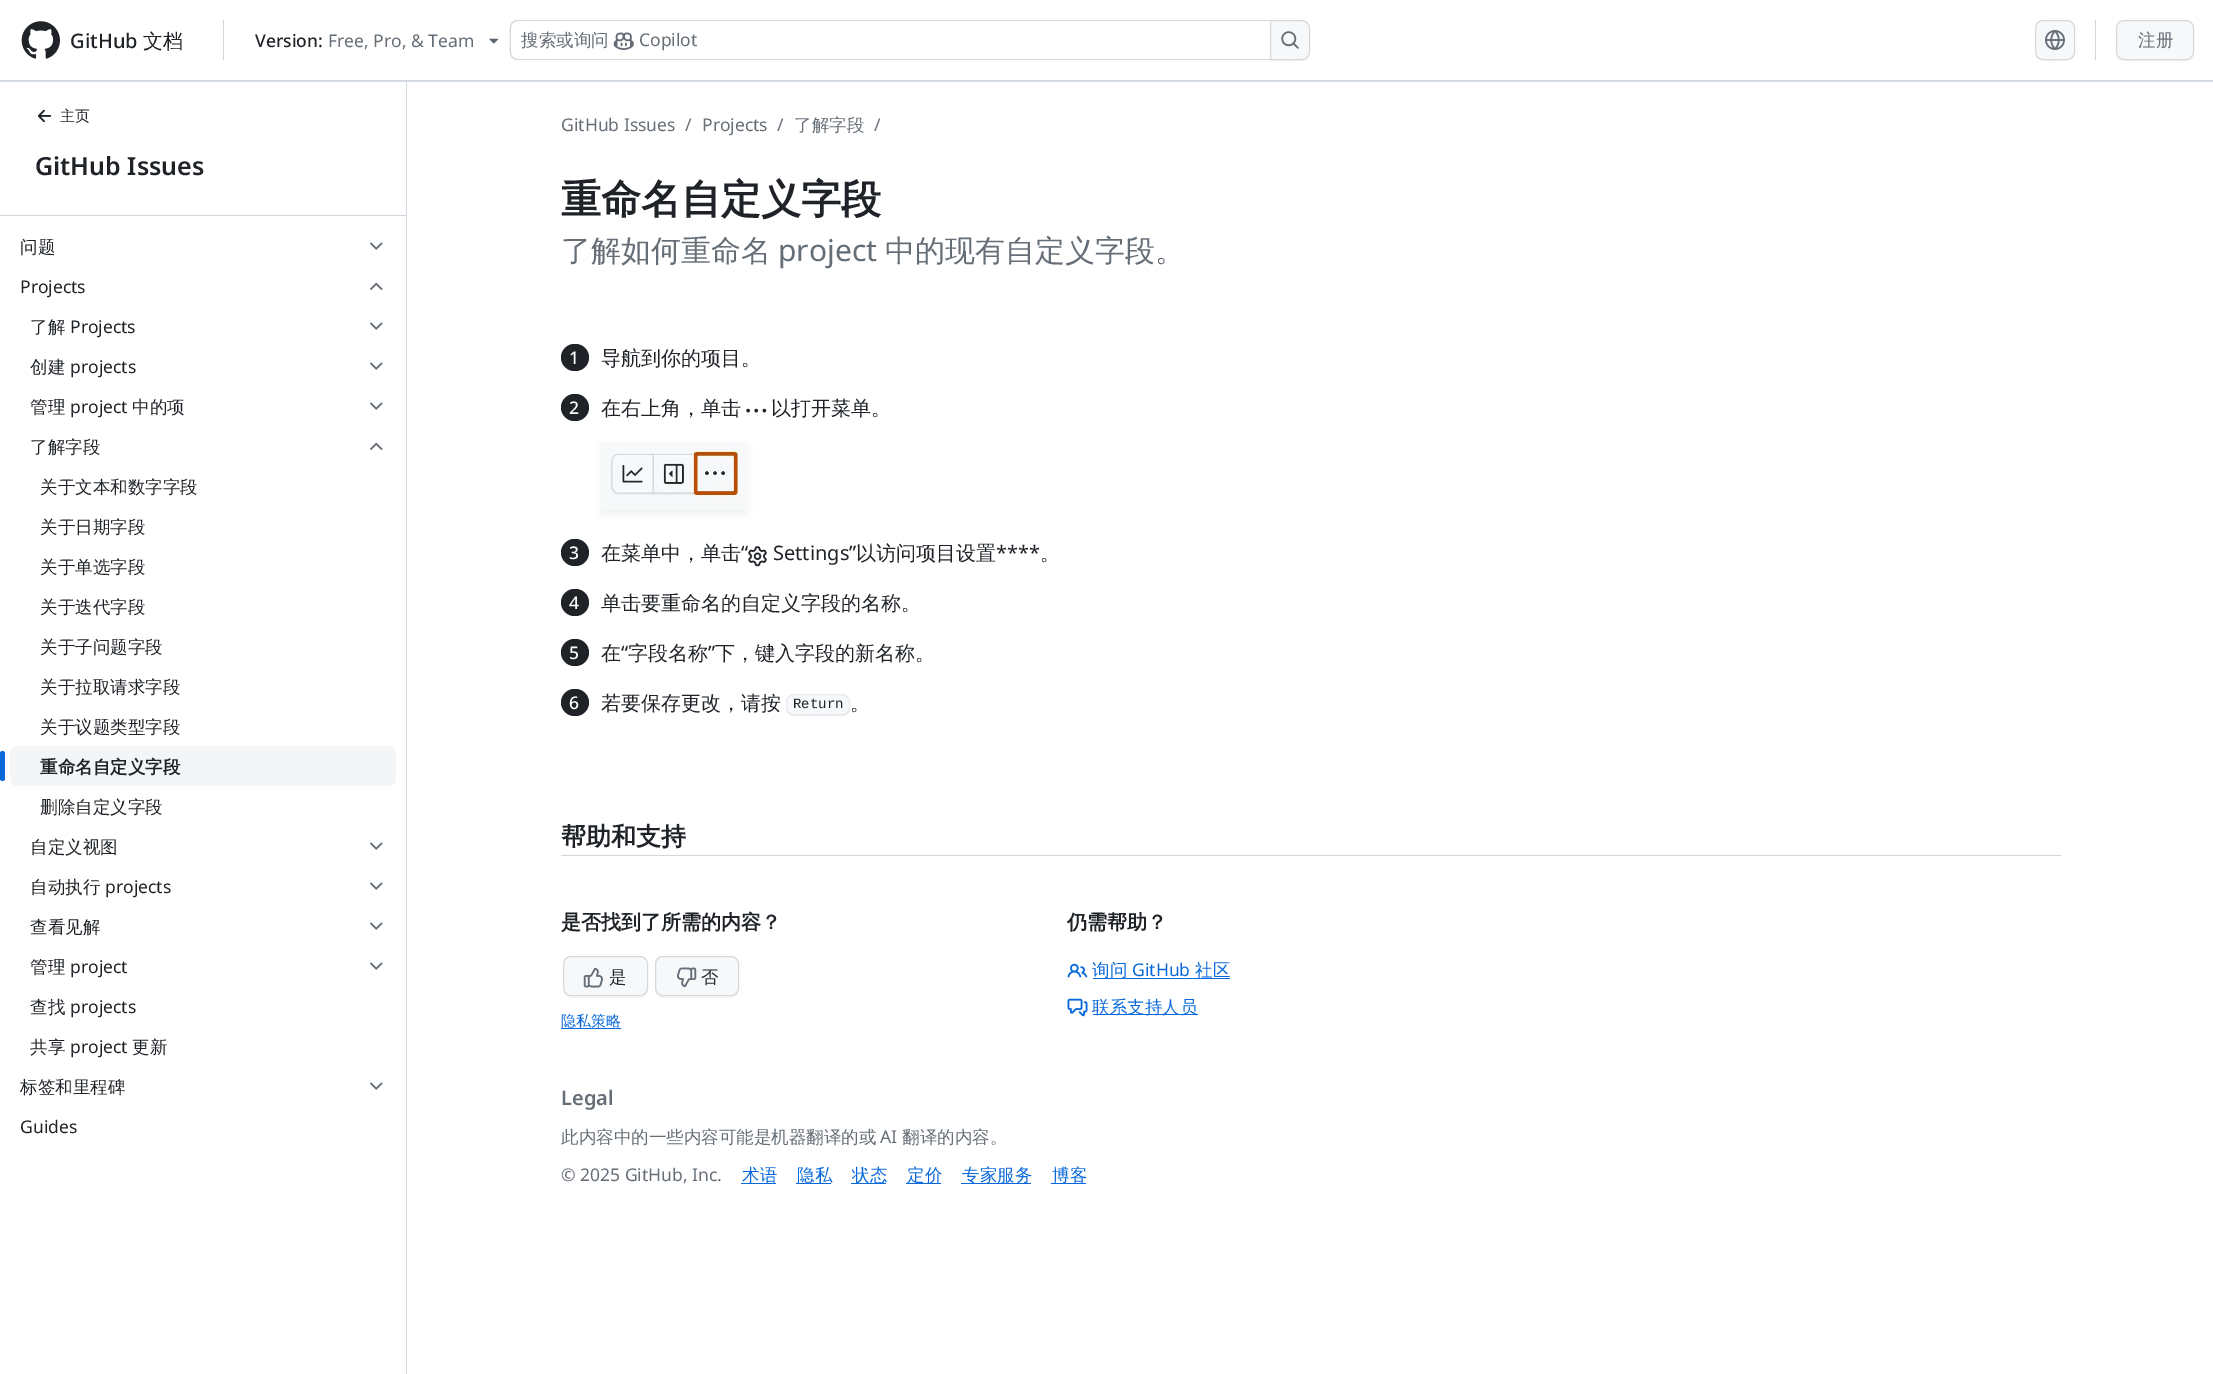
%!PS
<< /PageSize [2213 1374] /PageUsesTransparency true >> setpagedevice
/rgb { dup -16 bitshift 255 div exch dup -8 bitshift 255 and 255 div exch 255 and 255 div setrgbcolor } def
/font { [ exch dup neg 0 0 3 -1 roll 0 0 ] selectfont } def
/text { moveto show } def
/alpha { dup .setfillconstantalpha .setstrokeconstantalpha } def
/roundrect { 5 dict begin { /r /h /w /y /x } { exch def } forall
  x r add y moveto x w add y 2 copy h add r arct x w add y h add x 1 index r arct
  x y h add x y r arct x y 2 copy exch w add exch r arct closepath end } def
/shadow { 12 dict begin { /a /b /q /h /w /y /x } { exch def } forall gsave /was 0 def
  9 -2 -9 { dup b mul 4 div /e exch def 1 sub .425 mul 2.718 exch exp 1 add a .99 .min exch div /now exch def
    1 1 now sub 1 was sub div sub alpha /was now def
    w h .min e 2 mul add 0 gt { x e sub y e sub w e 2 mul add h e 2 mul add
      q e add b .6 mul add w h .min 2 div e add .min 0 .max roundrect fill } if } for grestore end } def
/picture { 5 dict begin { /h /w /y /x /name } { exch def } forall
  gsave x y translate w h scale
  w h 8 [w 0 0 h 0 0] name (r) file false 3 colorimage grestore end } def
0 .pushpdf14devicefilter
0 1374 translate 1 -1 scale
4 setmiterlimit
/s1 { /NotoSans-Medium 20 font 16#1F2328 rgb } def
/s2 { /WenQuanYiZenHei-Medium 20 font 16#1F2328 rgb } def
/s3 { /NotoSans-Medium 17.5 font 16#1F2328 rgb } def
/s4 { /NotoSans-Regular 17.5 font 16#656D76 rgb } def
/s5 { /WenQuanYiZenHei-Medium 17.5 font 16#656D76 rgb } def
/s6 { /WenQuanYiZenHei-Medium 15 font 16#1F2328 rgb } def
/s7 { /NotoSans-SemiBold 25 font 16#1F2328 rgb } def
/s8 { /WenQuanYiZenHei-Medium 17.5 font 16#1F2328 rgb } def
/s9 { /NotoSans-Regular 17.5 font 16#1F2328 rgb } def
/s10 { /WenQuanYiZenHei-Bold 17.5 font 16#1F2328 rgb } def
/s11 { /WenQuanYiZenHei-Bold 40 font 16#1F2328 rgb } def
/s12 { /WenQuanYiZenHei-Medium 30 font 16#656D76 rgb } def
/s13 { /NotoSans-Regular 30 font 16#656D76 rgb } def
/s14 { /NotoSans-Medium 17.5 font 16#FFFFFF rgb } def
/s15 { /NotoSans-Regular 20 font 16#1F2328 rgb } def
/s16 { /LiberationMono-Regular 14 font 16#1F2328 rgb } def
/s17 { /WenQuanYiZenHei-Bold 25 font 16#1F2328 rgb } def
/s18 { /WenQuanYiZenHei-Bold 20 font 16#1F2328 rgb } def
/s19 { /WenQuanYiZenHei-Medium 17.5 font 16#24292F rgb } def
/s20 { /WenQuanYiZenHei-Medium 15 font 16#0969DA rgb } def
/s21 { /WenQuanYiZenHei-Medium 17.5 font 16#0969DA rgb } def
/s22 { /NotoSans-Regular 17.5 font 16#0969DA rgb } def
/s23 { /NotoSans-SemiBold 20 font 16#656D76 rgb } def
16#FFFFFF rgb
0 0 2213 1374 rectfill
16#D8DEE4 rgb
0 81 2213 1 rectfill
16#D0D7DE rgb
0 80 2213 1 rectfill
(pic1.raw) 21 21 39 38 picture
s1
(GitHub) 70 48 text
s2
(文档) 143 48 text
16#D0D7DE rgb
223 20 1 40 rectfill
s3
(Version:) 255 47 text
s4
(Free, Pro, & Team) 328 47 text
(pic2.raw) 489 38 10 6 picture
16#D0D7DE rgb
518 20 moveto 1270 20 lineto 1270 60 lineto 518 60 lineto 507 60 510 46 510 40 curveto 510 34 507 20 518 20 curveto closepath 518 21 moveto 1270 21 lineto 1270 59 lineto 518 59 lineto 514 59 511 56 511 52 curveto 511 28 lineto 511 24 514 21 518 21 curveto closepath eofill
s5
(搜索或询问) 521 46 text
(pic3.raw) 613 32 21 18 picture
s4
(Copilot) 639 46 text
16#F6F6F6 rgb
1270 60 moveto 1270 61 lineto 1291 61 lineto 1298 61 1310 63 1310 52 curveto 1310 57 1307 60 1302 60 curveto closepath fill
16#F6F8FA rgb
1270 20 moveto 1302 20 lineto 1306.5 20 1310 23.5 1310 28 curveto 1310 52 lineto 1310 56.5 1306.5 60 1302 60 curveto 1270 60 lineto closepath fill
0.15 alpha
16#1F2328 rgb
1270.5 20.5 moveto 1302 20.5 lineto 1306 20.5 1309.5 24 1309.5 28 curveto 1309.5 52 lineto 1309.5 56 1306 59.5 1302 59.5 curveto 1270.5 59.5 lineto closepath stroke
1 alpha
(pic4.raw) 1281 31 18 18 picture
16#F6F6F6 rgb
2035 52 moveto 2035 63 2048 61 2055 61 curveto 2062 61 2075 63 2075 52 curveto 2075 63 2061 60 2055 60 curveto 2049 60 2035 63 2035 52 curveto closepath fill
16#F6F8FA rgb
2035 20 40 40 8 roundrect fill
0.15 alpha
16#1F2328 rgb
2035.5 20.5 39 39 7.5 roundrect stroke
1 alpha
(pic5.raw) 2045 30 20 20 picture
16#D0D7DE rgb
2095 20 1 40 rectfill
16#F6F6F6 rgb
2116 27 moveto 2116 45 lineto 2116 62 2117 61 2134 61 curveto 2176 61 lineto 2193 61 2194 62 2194 45 curveto 2194 27 lineto 2194 44 lineto 2194 61 2193 60 2176 60 curveto 2134 60 lineto 2117 60 2116 61 2116 44 curveto closepath fill
16#F6F8FA rgb
2116 20 78 40 8 roundrect fill
0.15 alpha
16#1F2328 rgb
2116.5 20.5 77 39 7.5 roundrect stroke
1 alpha
s5
(注册) 2138 46 text
16#D0D7DE rgb
406 81 1 1293 rectfill
0 215 406 1 rectfill
(pic6.raw) 37 109 15 14 picture
s6
(主页) 60 121 text
s7
(GitHub Issues) 35 175 text
s8
(问题) 20 253 text
(pic7.raw) 370 242 13 8 picture
s9
(Projects) 20 293 text
(pic8.raw) 370 282 13 8 picture
s8
(了解) 30 333 text
s9
(Projects) 70 333 text
(pic7.raw) 370 322 13 8 picture
s8
(创建) 30 373 text
s9
(projects) 70 373 text
(pic7.raw) 370 362 13 8 picture
s8
(管理) 30 413 text
s9
(project) 70 413 text
s8
(中的项) 132 413 text
(pic7.raw) 370 402 13 8 picture
(了解字段) 30 453 text
(pic8.raw) 370 442 13 8 picture
(关于文本和数字字段) 40 493 text
(关于日期字段) 40 533 text
(关于单选字段) 40 573 text
(关于迭代字段) 40 613 text
(关于子问题字段) 40 653 text
(关于拉取请求字段) 40 693 text
(关于议题类型字段) 40 733 text
16#F4F5F7 rgb
10 746 386 40 8 roundrect fill
16#0969DA rgb
0 751 5 30 2.5 roundrect fill
s10
(重命名自定义字段) 40 773 text
s8
(删除自定义字段) 40 813 text
(自定义视图) 30 853 text
(pic7.raw) 370 842 13 8 picture
(自动执行) 30 893 text
s9
(projects) 105 893 text
(pic7.raw) 370 882 13 8 picture
s8
(查看见解) 30 933 text
(pic7.raw) 370 922 13 8 picture
(管理) 30 973 text
s9
(project) 70 973 text
(pic7.raw) 370 962 13 8 picture
s8
(查找) 30 1013 text
s9
(projects) 70 1013 text
s8
(共享) 30 1053 text
s9
(project) 70 1053 text
s8
(更新) 132 1053 text
(标签和里程碑) 20 1093 text
(pic7.raw) 370 1082 13 8 picture
s9
(Guides) 20 1133 text
s4
(GitHub Issues) 561 131 text
(/) 685 131 text
(Projects) 702 131 text
(/) 777 131 text
s5
(了解字段) 794 131 text
s4
(/) 874 131 text
s11
(重命名自定义字段) 561 213 text
s12
(了解如何重命名) 561 261 text
s13
(project) 778 261 text
s12
(中的现有自定义字段。) 885 261 text
16#1F2328 rgb
561 344 28 27 13.5 roundrect fill
s14
(1) 569 364 text
s2
(导航到你的项目。) 601 365 text
561 394 28 27 13.5 roundrect fill
s14
(2) 569 414 text
s2
(在右上角，单击) 601 415 text
(pic9.raw) 746 408 21 5 picture
(以打开菜单。) 771 415 text
16#8C959F rgb
601 446 147 68 0 4 0.15 shadow
16#FFFFFF rgb
601 443 147 67 rectfill
(pic10.raw) 601 442 147 68 picture
16#1F2328 rgb
561 539 28 27 13.5 roundrect fill
s14
(3) 569 559 text
s2
(在菜单中，单击) 601 560 text
s15
(“) 741 560 text
(pic11.raw) 748 546 19 21 picture
(Settings”) 773 560 text
s2
(以访问项目设置) 856 560 text
s15
(****) 996 560 text
s2
(。) 1040 560 text
561 589 28 27 13.5 roundrect fill
s14
(4) 569 609 text
s2
(单击要重命名的自定义字段的名称。) 601 610 text
561 639 28 27 13.5 roundrect fill
s14
(5) 569 659 text
s2
(在) 601 660 text
s15
(“) 621 660 text
s2
(字段名称) 628 660 text
s15
(”) 708 660 text
s2
(下，键入字段的新名称。) 715 660 text
561 689 28 27 13.5 roundrect fill
s14
(6) 569 709 text
s2
(若要保存更改，请按) 601 710 text
16#F6F8FA rgb
786 694 64 22 8 roundrect fill
16#E8EBEF rgb
788 708 moveto 788 717 796 715 802 715 curveto 835 715 lineto 841 715 849 717 849 708 curveto 849 711 846 714 842 714 curveto 794 714 lineto 790 714 788 711 788 708 curveto closepath fill
0.2 alpha
16#AFB8C1 rgb
786.5 694.5 63 21 7.5 roundrect stroke
1 alpha
s16
(Return) 793 708 text
s2
(。) 850 710 text
s17
(帮助和支持) 561 845 text
16#D0D7DE rgb
561 855 1500 1 rectfill
s18
(是否找到了所需的内容？) 561 929 text
16#F6F6F6 rgb
563 992 moveto 564 995 567 998 571 998 curveto 640 998 lineto 644 998 648 994 648 990 curveto 648 966 lineto 647 963 lineto 648 985 lineto 648 999 641 996 628 996 curveto 582 996 lineto 577 996 566 999 563 992 curveto closepath fill
16#F6F8FA rgb
563 956 85 40 8 roundrect fill
0.15 alpha
16#1F2328 rgb
563.5 956.5 84 39 7.5 roundrect stroke
1 alpha
(pic12.raw) 583 967 20 21 picture
s19
(是) 609 983 text
16#F6F6F6 rgb
655 989 moveto 655 1000 666 998 674 998 curveto 720 998 lineto 726 998 737 1000 739 992 curveto 739 964 lineto 739 989 lineto 739 993 735 996 731 996 curveto 662 996 lineto 658 996 655 993 655 989 curveto closepath fill
16#F6F8FA rgb
655 956 84 40 8 roundrect fill
0.15 alpha
16#1F2328 rgb
655.5 956.5 83 39 7.5 roundrect stroke
1 alpha
(pic13.raw) 677 967 20 21 picture
s19
(否) 701 983 text
s20
(隐私策略) 561 1026 text
561 1028 60 1 rectfill
s18
(仍需帮助？) 1067 929 text
(pic14.raw) 1067 963 21 15 picture
16#0969DA rgb
1093 978 137 1 rectfill
s21
(询问) 1092 976 text
s22
(GitHub) 1132 976 text
s21
(社区) 1195 976 text
(pic15.raw) 1067 998 21 19 picture
1093 1014 105 1 rectfill
(联系支持人员) 1092 1013 text
s23
(Legal) 561 1105 text
s5
(此内容中的一些内容可能是机器翻译的或) 561 1143 text
s4
(AI) 880 1143 text
s5
(翻译的内容。) 902 1143 text
s4
(© 2025 GitHub, Inc.) 561 1181 text
16#0969DA rgb
741 1183 35 1 rectfill
s21
(术语) 742 1181 text
796 1183 35 1 rectfill
(隐私) 797 1181 text
851 1183 35 1 rectfill
(状态) 852 1181 text
906 1183 35 1 rectfill
(定价) 907 1181 text
961 1183 70 1 rectfill
(专家服务) 962 1181 text
1051 1183 35 1 rectfill
(博客) 1052 1181 text
.poppdf14devicefilter showpage
